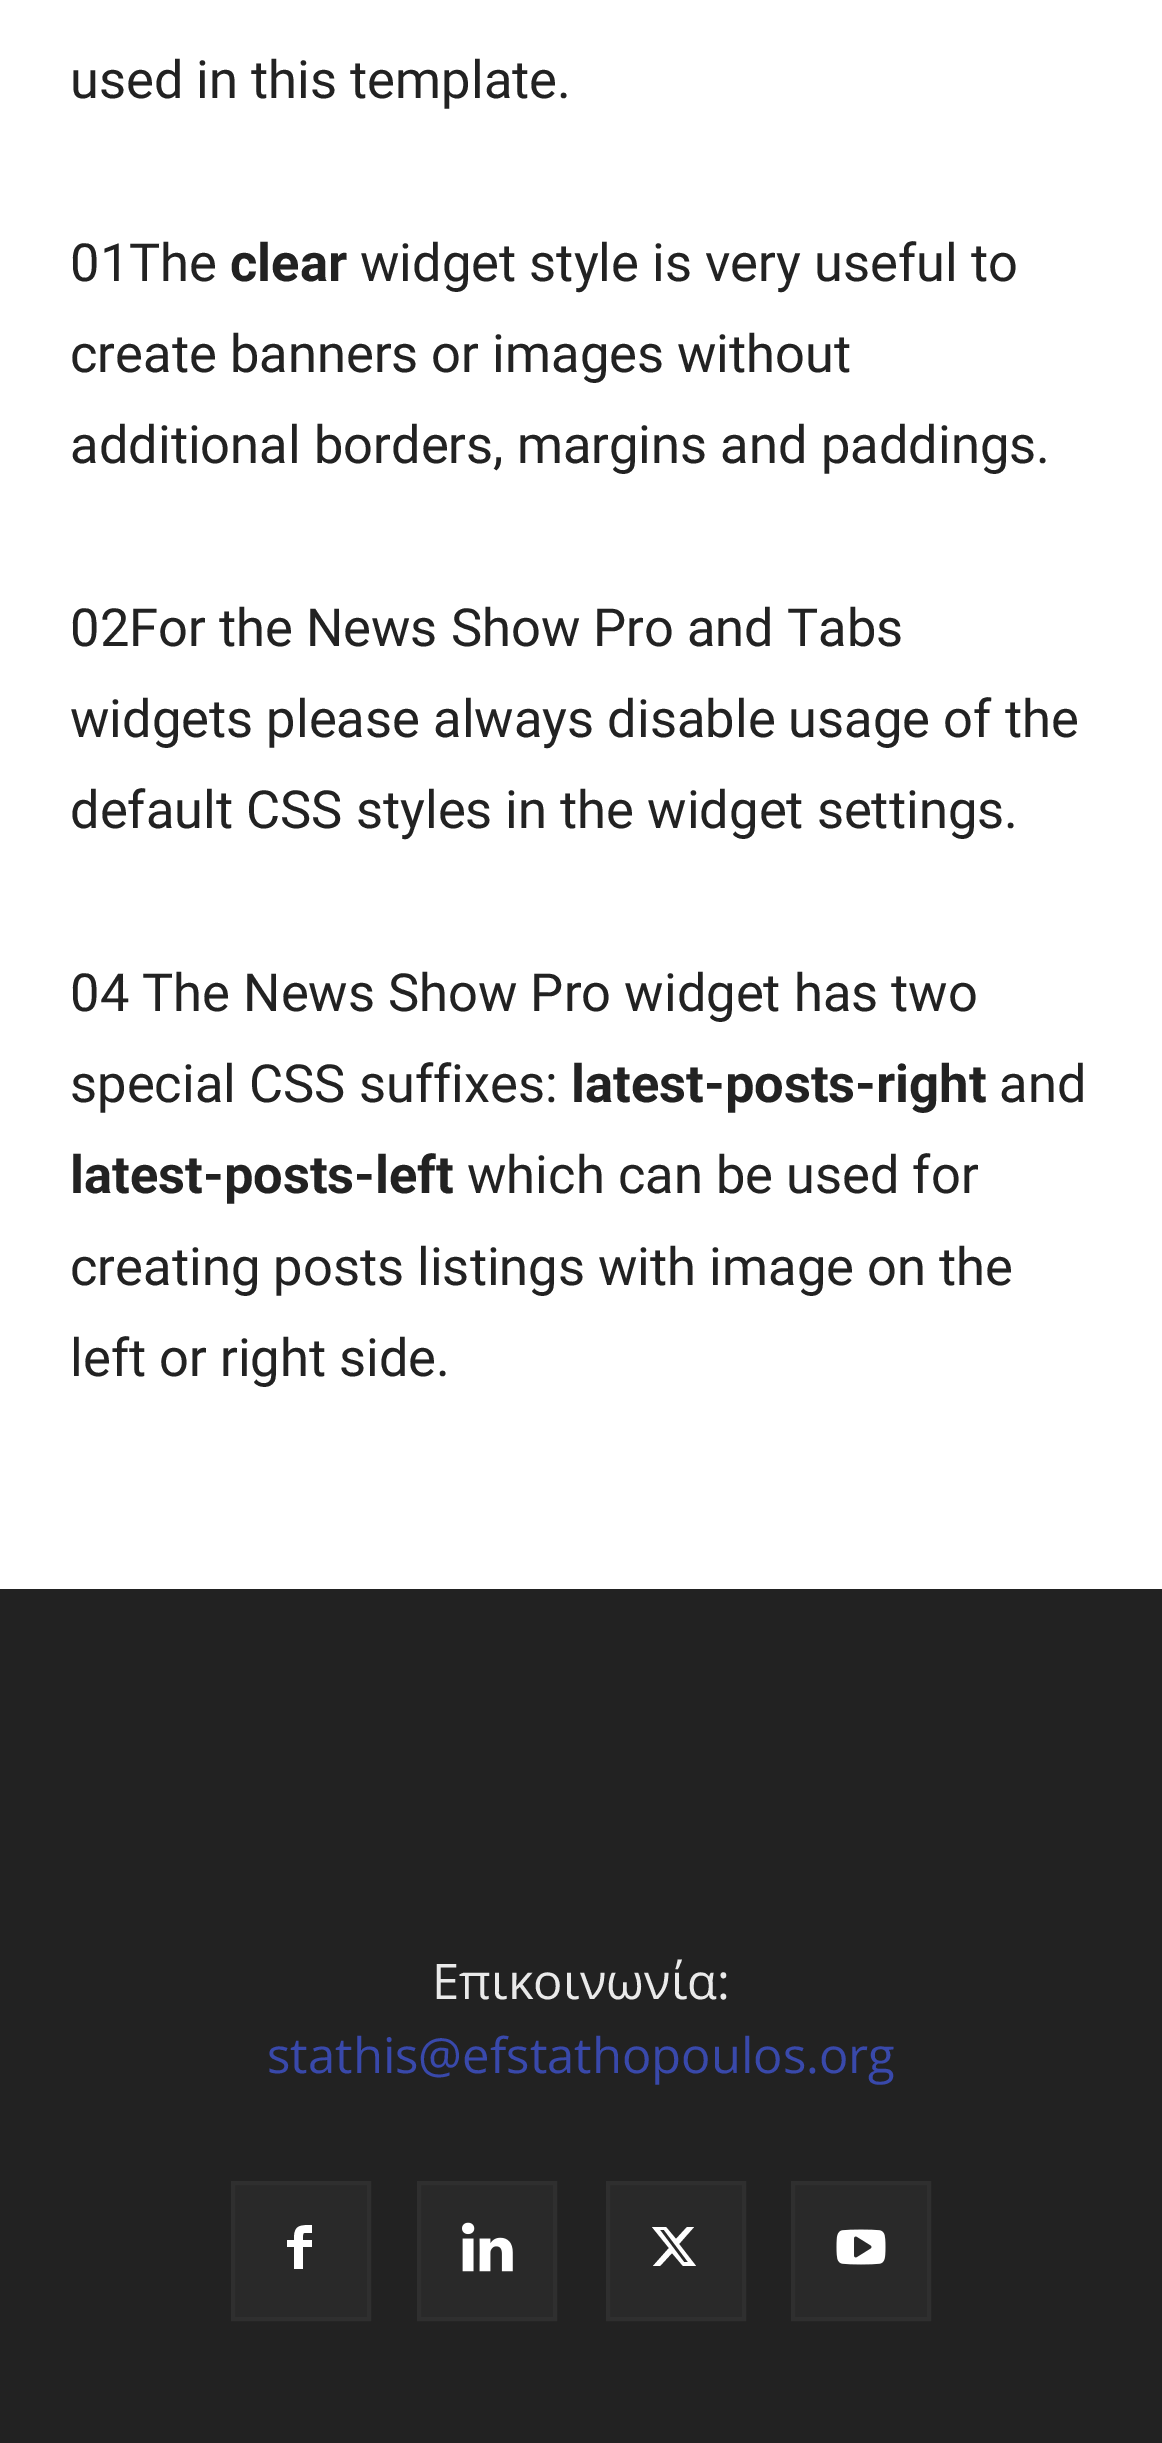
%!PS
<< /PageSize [1162 2443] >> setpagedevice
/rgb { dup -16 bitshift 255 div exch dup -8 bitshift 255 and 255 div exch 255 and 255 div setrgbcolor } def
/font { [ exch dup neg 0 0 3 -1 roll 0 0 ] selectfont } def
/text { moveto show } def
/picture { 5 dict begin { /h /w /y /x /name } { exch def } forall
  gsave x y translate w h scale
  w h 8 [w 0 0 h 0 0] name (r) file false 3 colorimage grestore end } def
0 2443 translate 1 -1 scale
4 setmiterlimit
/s1 { /Roboto-Regular 52.5 font 16#222222 rgb } def
/s2 { /Roboto-Bold 52.5 font 16#222222 rgb } def
/s3 { /OpenSans-Regular 49 font 16#EAEAEA rgb } def
/s4 { /OpenSans-Regular 49 font 16#3949AB rgb } def
16#FFFFFF rgb
0 0 1162 2443 rectfill
s1
(used in this template.) 70 98 text
(01The) 70 281 text
s2
(clear) 230 281 text
s1
(widget style is very useful to) 360 281 text
(create banners or images without) 70 372 text
(additional borders, margins and paddings.) 70 463 text
(02For the News Show Pro and Tabs) 70 646 text
(widgets please always disable usage of the) 70 737 text
(default CSS styles in the widget settings.) 70 828 text
(04 The News Show Pro widget has two) 70 1011 text
(special CSS suffixes:) 70 1102 text
s2
(latest-posts-right) 571 1102 text
s1
(and) 999 1102 text
s2
(latest-posts-left) 70 1193 text
s1
(which can be used for) 467 1193 text
(creating posts listings with image on the) 70 1285 text
(left or right side.) 70 1376 text
0 1589 1162 854 rectfill
s3
(Επικοινωνία:) 432 1999 text
s4
(stathis@efstathopoulos.org) 267 2073 text
16#292929 rgb
235 2185 132 132 rectfill
16#FFFFFF rgb
312 2233 moveto 302 2233 303 2231 303 2240 curveto 312 2240 lineto 312 2247 lineto 303 2247 lineto 303 2269 lineto 294 2269 lineto 294 2247 lineto 287 2247 lineto 287 2240 lineto 294 2240 lineto 294 2226 298 2225 312 2225 curveto closepath fill
16#2F2F2F rgb
4 setlinewidth
233 2183 136 136 rectstroke
16#292929 rgb
421 2185 132 132 rectfill
(pic1.raw) 462 2222 51 50 picture
16#2F2F2F rgb
419 2183 136 136 rectstroke
16#292929 rgb
610 2185 132 132 rectfill
16#FFFFFF rgb
687 2227 moveto 694 2227 lineto 679 2244 lineto 696 2266 lineto 683 2266 lineto 672 2253 lineto 660 2266 lineto 653 2266 lineto 669 2248 lineto 652 2227 lineto 666 2227 lineto 676 2239 lineto closepath 684 2262 moveto 688 2262 lineto 664 2230 lineto 660 2230 lineto closepath fill
16#2F2F2F rgb
608 2183 136 136 rectstroke
16#292929 rgb
795 2185 132 132 rectfill
(pic2.raw) 836 2229 50 36 picture
16#2F2F2F rgb
793 2183 136 136 rectstroke
showpage
